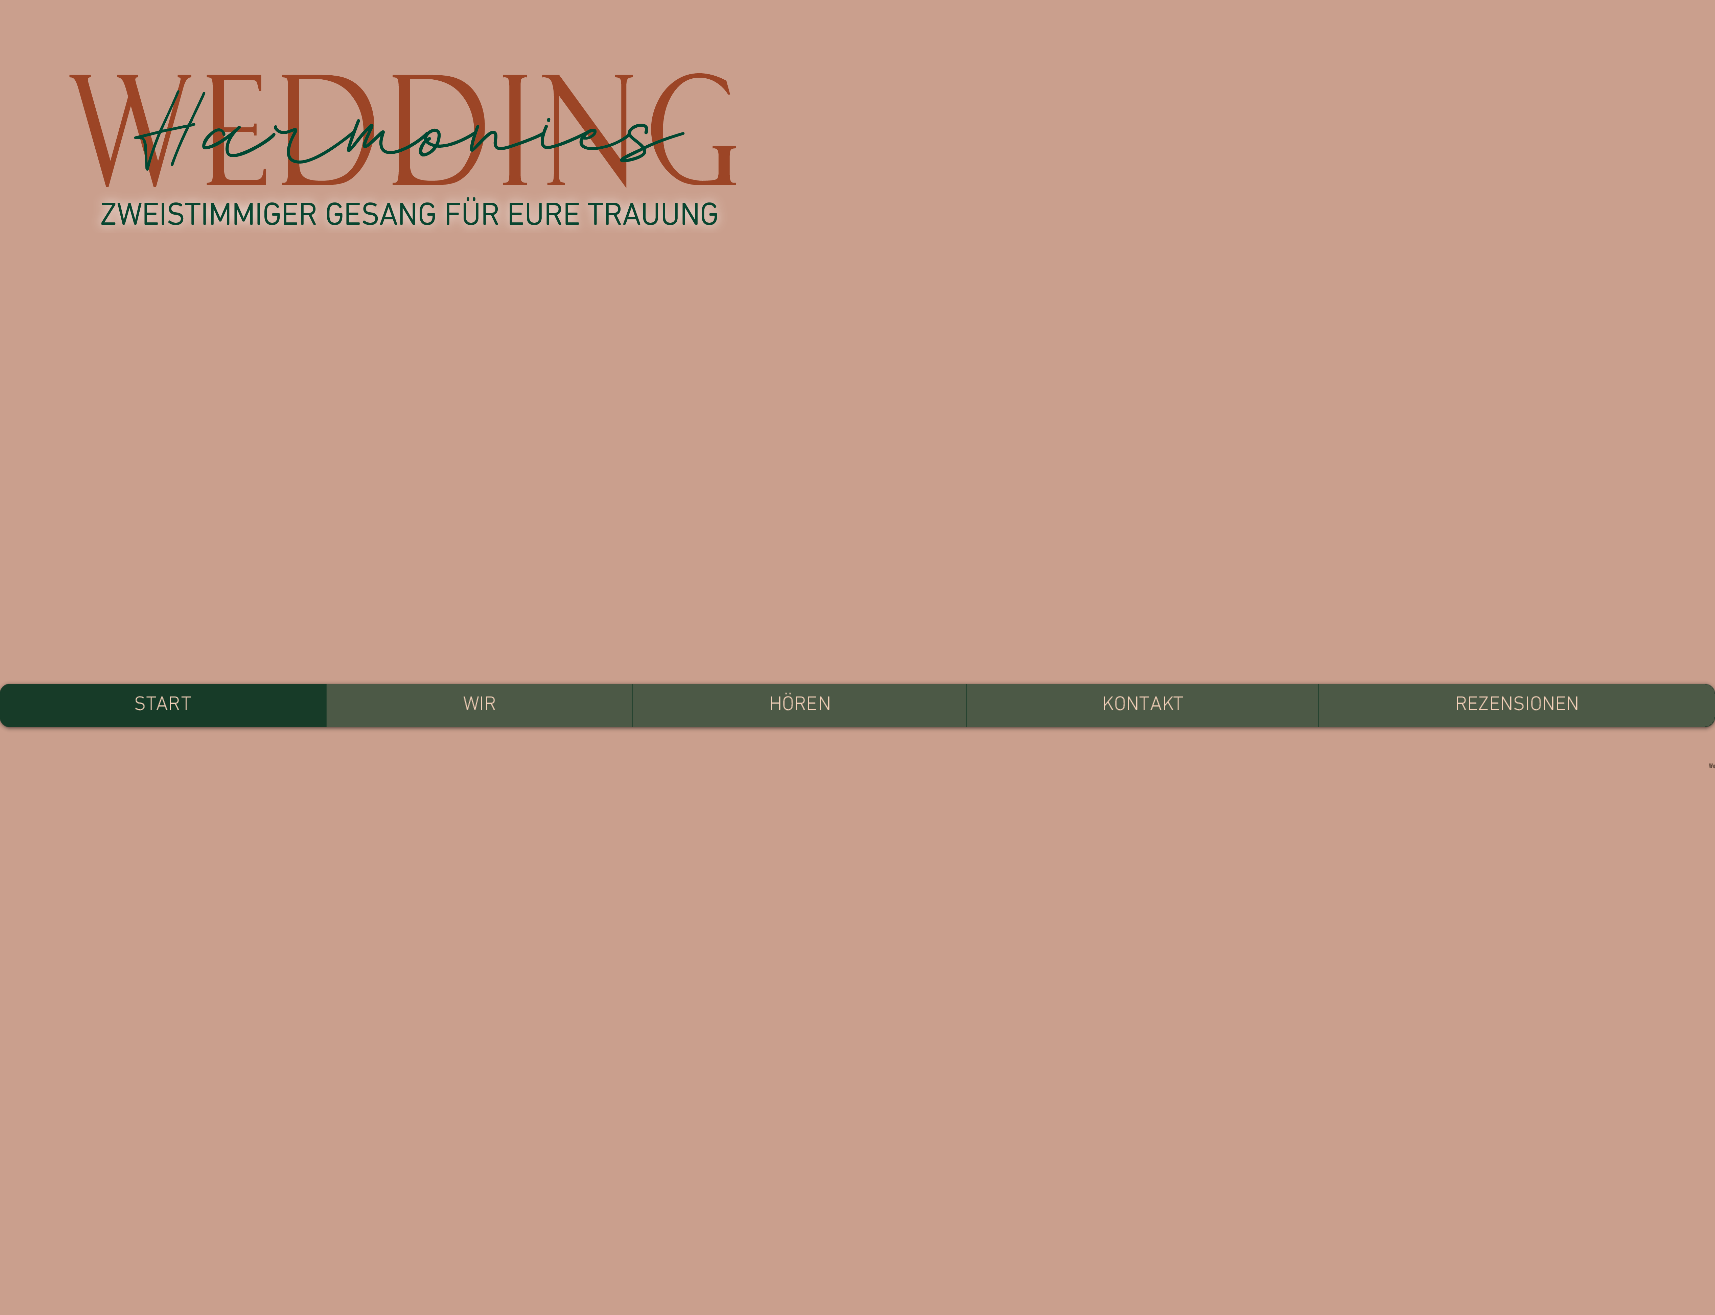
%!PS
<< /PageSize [1715 1315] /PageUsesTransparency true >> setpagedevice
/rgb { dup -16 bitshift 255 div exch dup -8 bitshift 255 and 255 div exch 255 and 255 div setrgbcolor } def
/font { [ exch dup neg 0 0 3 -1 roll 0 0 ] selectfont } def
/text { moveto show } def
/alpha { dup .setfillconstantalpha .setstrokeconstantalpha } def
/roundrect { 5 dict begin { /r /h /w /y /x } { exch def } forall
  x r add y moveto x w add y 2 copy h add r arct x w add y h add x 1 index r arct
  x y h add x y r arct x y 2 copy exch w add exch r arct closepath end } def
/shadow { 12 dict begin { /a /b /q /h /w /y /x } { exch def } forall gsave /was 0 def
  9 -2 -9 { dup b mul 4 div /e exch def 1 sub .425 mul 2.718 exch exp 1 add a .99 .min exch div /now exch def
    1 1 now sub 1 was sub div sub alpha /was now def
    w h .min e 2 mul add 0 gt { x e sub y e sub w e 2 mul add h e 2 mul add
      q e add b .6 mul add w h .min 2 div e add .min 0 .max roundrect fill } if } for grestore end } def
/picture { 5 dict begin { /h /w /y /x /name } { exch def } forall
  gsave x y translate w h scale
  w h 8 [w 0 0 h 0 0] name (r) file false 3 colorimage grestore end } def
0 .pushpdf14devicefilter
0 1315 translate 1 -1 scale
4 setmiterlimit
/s1 { /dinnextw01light-Light 20 font 16#F2CFB8 rgb } def
/s2 { /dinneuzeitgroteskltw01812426-Regular 6 font 16#39291E rgb } def
16#CA9F8D rgb
0 0 1715 1315 rectfill
(pic1.raw) 69 73 667 160 picture
gsave
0 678 moveto 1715 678 lineto 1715 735 lineto 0 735 lineto closepath 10 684 moveto 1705 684 lineto 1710.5 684 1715 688.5 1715 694 curveto 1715 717 lineto 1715 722.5 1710.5 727 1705 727 curveto 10 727 lineto 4.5 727 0 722.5 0 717 curveto 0 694 lineto 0 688.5 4.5 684 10 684 curveto closepath eoclip newpath
16#000000 rgb
0 685 1715 43 10 2 0.6 shadow
grestore
0.7 alpha
16#173B28 rgb
0 684 1715 43 10 roundrect fill
1 alpha
10 684 moveto 326 684 lineto 326 727 lineto 10 727 lineto 4.5 727 0 722.5 0 717 curveto 0 694 lineto 0 688.5 4.5 684 10 684 curveto closepath fill
s1
(START) 134 710 text
16#274431 rgb
326 684 1 43 rectfill
s1
(WIR) 463 710 text
16#274431 rgb
632 684 1 43 rectfill
s1
(HÖREN) 769 710 text
16#274431 rgb
966 684 1 43 rectfill
s1
(KONTAKT) 1102 710 text
16#274431 rgb
1318 684 1 43 rectfill
s1
(REZENSIONEN) 1455 710 text
s2
(We) 1709 768 text
.poppdf14devicefilter showpage
